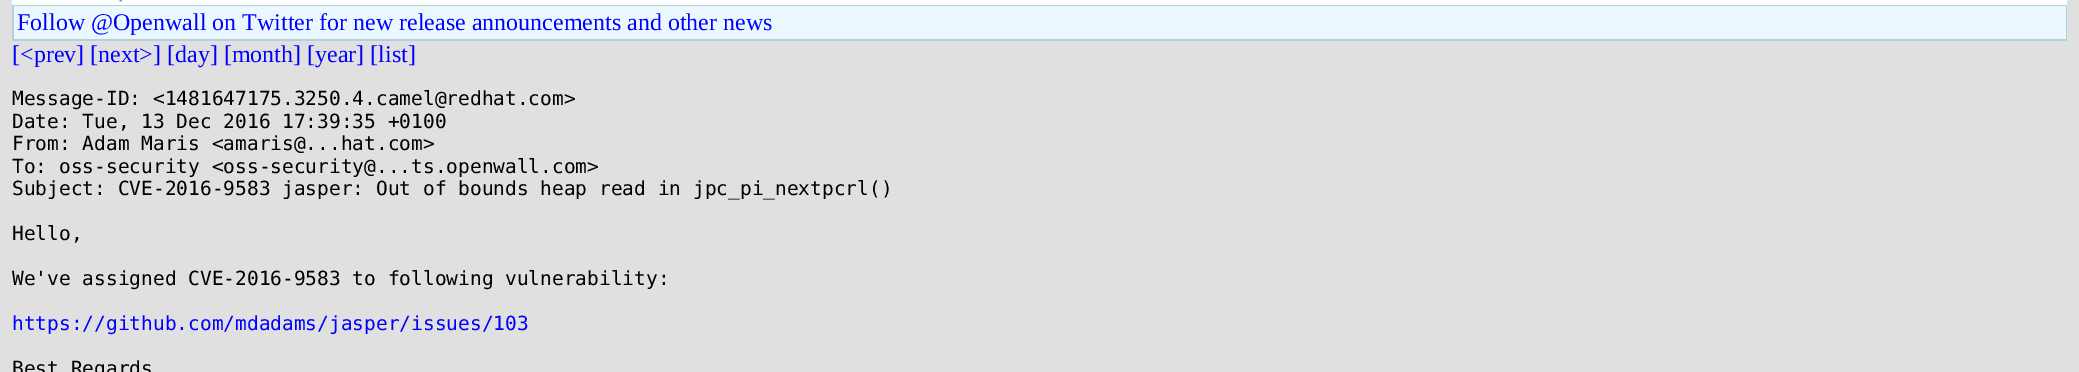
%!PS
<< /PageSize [2079 372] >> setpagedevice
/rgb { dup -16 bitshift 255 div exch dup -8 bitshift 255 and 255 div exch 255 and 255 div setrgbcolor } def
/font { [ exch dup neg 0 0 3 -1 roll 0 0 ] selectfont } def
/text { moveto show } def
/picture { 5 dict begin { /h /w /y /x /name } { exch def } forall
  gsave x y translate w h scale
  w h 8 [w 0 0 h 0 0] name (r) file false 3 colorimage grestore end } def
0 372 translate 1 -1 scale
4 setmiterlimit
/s1 { /LiberationSerif-Regular 24 font 16#0000FF rgb } def
/s2 { /DejaVuSansMono-Regular 19.5 font 16#000000 rgb } def
/s3 { /DejaVuSansMono-Regular 19.5 font 16#0000FF rgb } def
16#E0E0E0 rgb
0 0 2079 372 rectfill
16#FFFFFF rgb
12 0 2055 5 rectfill
(pic1.raw) 118 0 5 3 picture
16#B4D0DC rgb
12 5 2055 36 rectfill
16#ECF8FF rgb
14 6 2052 33 rectfill
s1
(Follow @Openwall on Twitter for new release announcements and other news) 17 30 text
([<prev] [next>] [day] [month] [year] [list]) 12 62 text
s2
(Message-ID: <1481647175.3250.4.camel@redhat.com>) 12 105 text
(Date: Tue, 13 Dec 2016 17:39:35 +0100) 12 128 text
(From: Adam Maris <amaris@...hat.com>) 12 150 text
(To: oss-security <oss-security@...ts.openwall.com>) 12 173 text
(Subject: CVE-2016-9583 jasper: Out of bounds heap read in jpc_pi_nextpcrl\(\)) 12 195 text
(Hello,) 12 240 text
(We've assigned CVE-2016-9583 to following vulnerability:) 12 285 text
s3
(https://github.com/mdadams/jasper/issues/103) 12 330 text
s2
(Best Regards) 12 375 text
showpage
